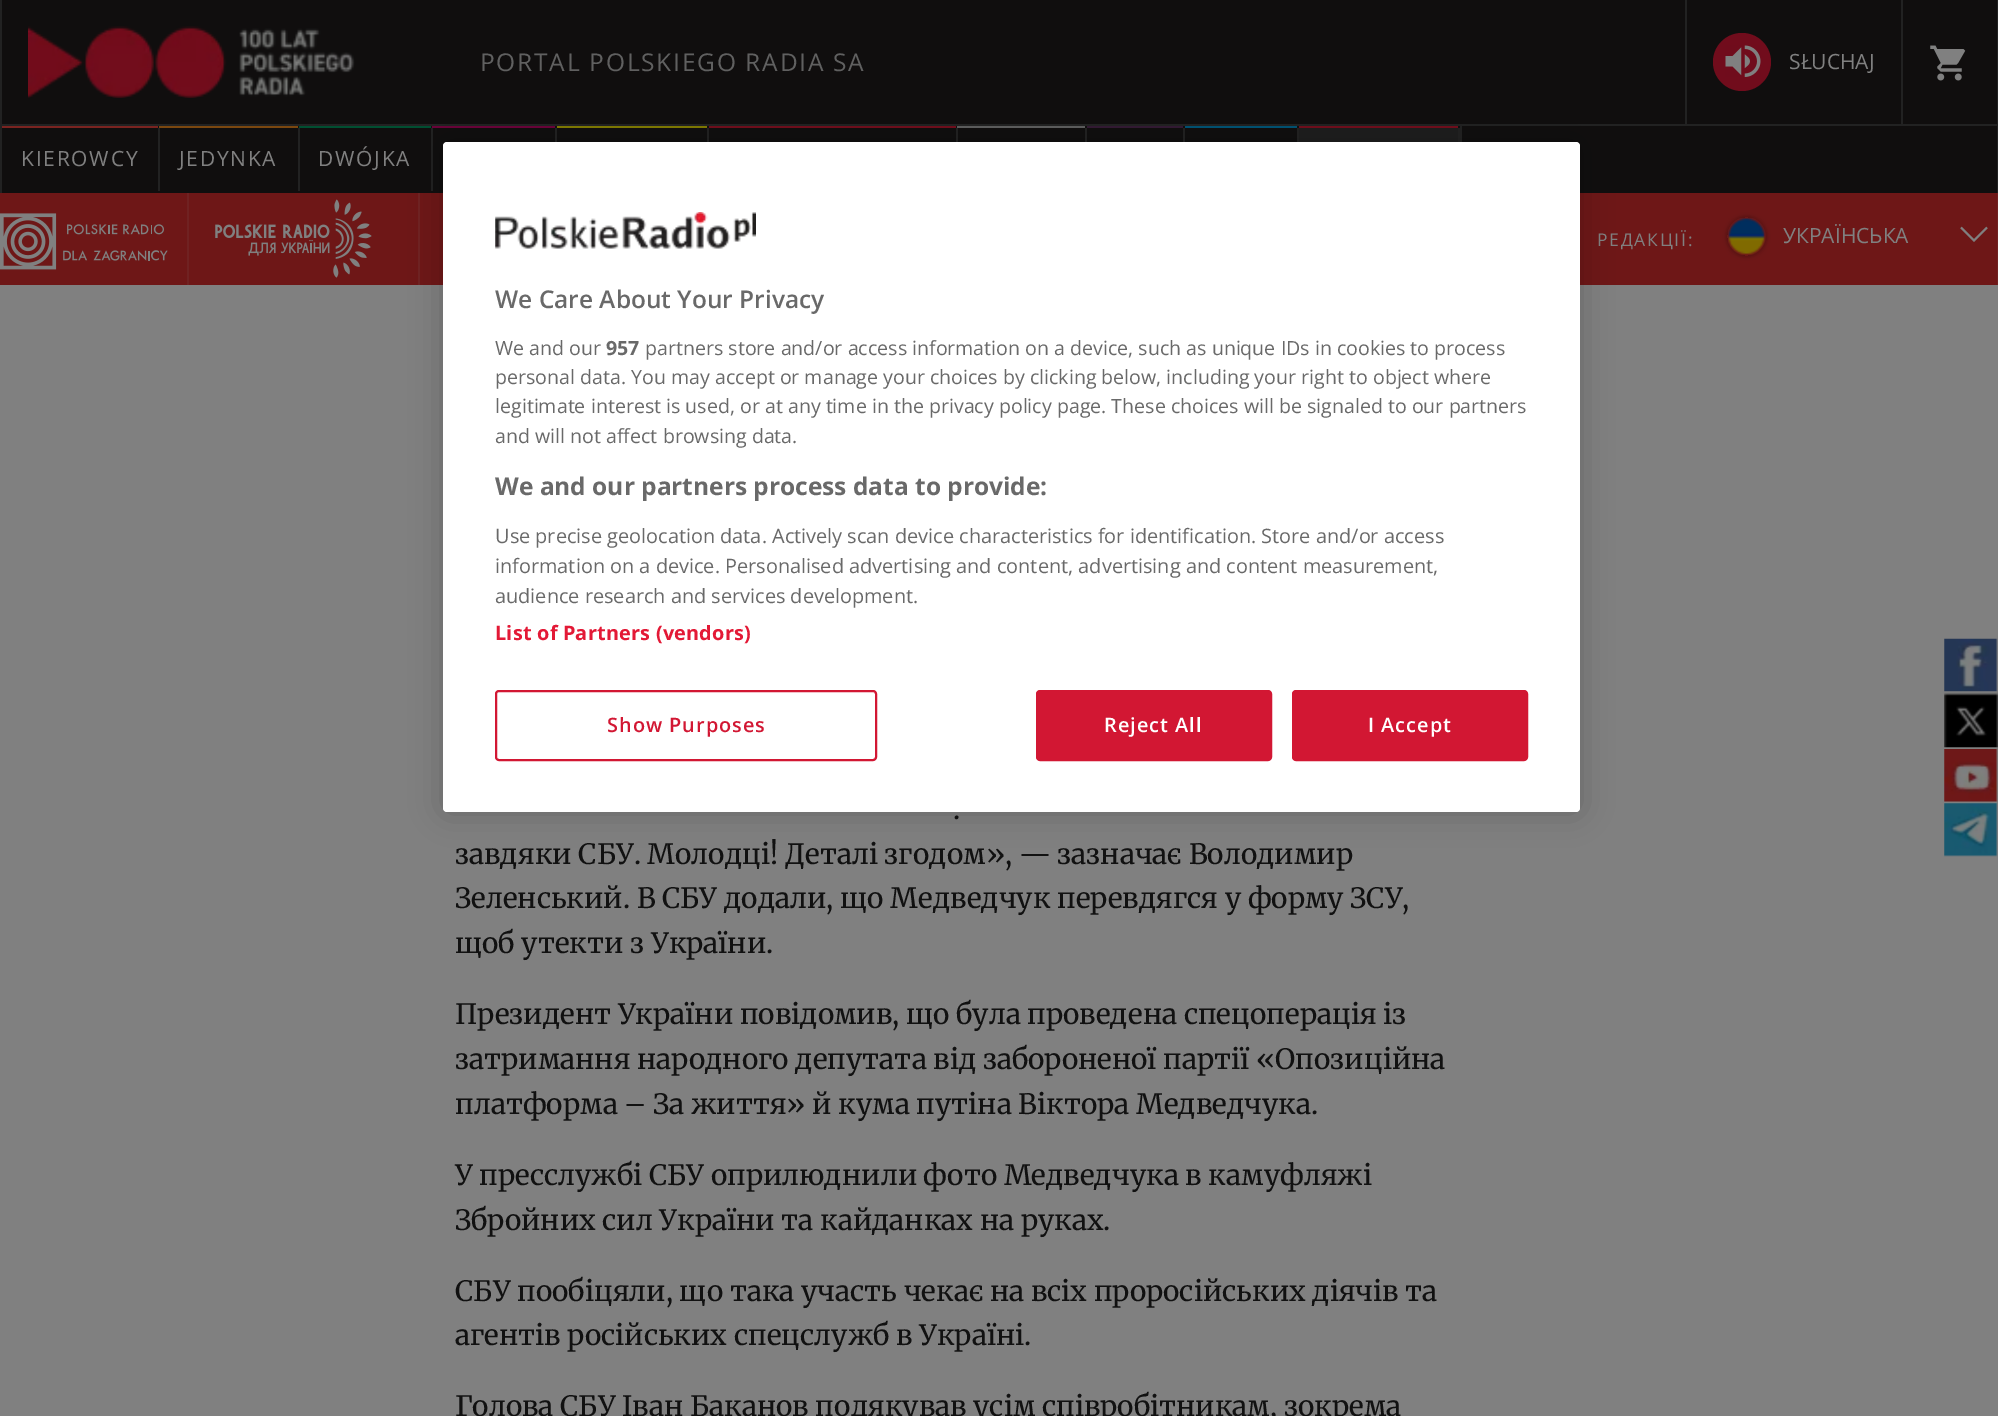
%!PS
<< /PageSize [1998 1416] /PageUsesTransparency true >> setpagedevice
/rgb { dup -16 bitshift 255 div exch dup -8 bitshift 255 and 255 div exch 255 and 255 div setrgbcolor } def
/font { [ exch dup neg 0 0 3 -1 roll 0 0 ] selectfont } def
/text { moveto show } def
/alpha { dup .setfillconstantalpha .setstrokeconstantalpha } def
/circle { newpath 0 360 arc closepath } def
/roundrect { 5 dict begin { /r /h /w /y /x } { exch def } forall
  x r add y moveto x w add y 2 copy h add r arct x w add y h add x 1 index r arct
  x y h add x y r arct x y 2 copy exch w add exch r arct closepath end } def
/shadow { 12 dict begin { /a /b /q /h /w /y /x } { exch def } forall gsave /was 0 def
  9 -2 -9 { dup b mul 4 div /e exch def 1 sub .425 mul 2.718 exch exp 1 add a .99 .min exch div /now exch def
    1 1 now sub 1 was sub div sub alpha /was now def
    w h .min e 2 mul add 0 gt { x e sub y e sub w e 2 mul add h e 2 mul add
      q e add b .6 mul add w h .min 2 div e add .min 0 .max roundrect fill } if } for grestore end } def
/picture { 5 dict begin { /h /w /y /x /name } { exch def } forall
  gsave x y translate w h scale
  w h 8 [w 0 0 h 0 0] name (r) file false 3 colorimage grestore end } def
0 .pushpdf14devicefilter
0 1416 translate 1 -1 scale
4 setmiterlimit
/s1 { /OpenSans-Regular 21 font 16#808080 rgb } def
/s2 { /Merriweather-Regular 28 font 16#111111 rgb } def
/s3 { /OpenSans-SemiBold 24.5 font 16#696969 rgb } def
/s4 { /OpenSans-Regular 19.6 font 16#696969 rgb } def
/s5 { /OpenSans-Bold 19.6 font 16#696969 rgb } def
/s6 { /OpenSans-Bold 24.5 font 16#696969 rgb } def
/s7 { /OpenSans-Regular 19.9 font 16#696969 rgb } def
16#808080 rgb
0 0 1998 1416 rectfill
16#100E0E rgb
2 0 1995 193 rectfill
16#222222 rgb
0 124 1998 2 rectfill
1997 0 1 124 rectfill
0 0 2 124 rectfill
(pic1.raw) 28 26 327 72 picture
/OpenSans-Regular 24.5 font
16#606060 rgb
480 71 moveto 1.75 0 (PORTAL POLSKIEGO RADIA SA) ashow
16#222222 rgb
1901 0 2 124 rectfill
1685 0 2 124 rectfill
16#710C1C rgb
1742 62 29 circle fill
(pic2.raw) 1725 45 36 32 picture
s1
(SŁUCHAJ) 1789 69 text
(pic3.raw) 1930 45 36 36 picture
16#222222 rgb
1997 126 1 67 rectfill
0 126 2 67 rectfill
555 128 2 14 rectfill
16#6C0239 rgb
432 126 123 2 rectfill
16#222222 rgb
707 128 2 14 rectfill
16#807A01 rgb
557 126 150 2 rectfill
16#222222 rgb
956 128 2 14 rectfill
16#720D1B rgb
709 126 247 2 rectfill
16#222222 rgb
1085 128 2 14 rectfill
16#5E5E5E rgb
957 126 128 2 rectfill
16#222222 rgb
1183 128 2 14 rectfill
16#331933 rgb
1087 126 96 2 rectfill
16#222222 rgb
1297 128 2 14 rectfill
16#005374 rgb
1185 126 112 2 rectfill
16#1D1D1D rgb
1299 128 159 14 rectfill
16#222222 rgb
1458 128 2 14 rectfill
16#720D1B rgb
1299 126 159 2 rectfill
16#222222 rgb
1460 126 2 16 rectfill
158 128 2 63 rectfill
16#7A2320 rgb
2 126 156 2 rectfill
16#808080 rgb
21 166 moveto 1.75 0 (KIEROWCY) ashow
16#222222 rgb
298 128 2 63 rectfill
16#7B470F rgb
159 126 139 2 rectfill
16#808080 rgb
179 166 moveto 1.75 0 (JEDYNKA) ashow
16#222222 rgb
431 128 2 63 rectfill
16#004F31 rgb
299 126 132 2 rectfill
16#808080 rgb
318 166 moveto 1.75 0 (DWÓJKA) ashow
16#6E1717 rgb
0 193 1997 92 rectfill
16#702222 rgb
187 193 2 92 rectfill
(pic4.raw) 0 213 168 57 picture
418 193 2 92 rectfill
(pic5.raw) 215 199 157 79 picture
/OpenSans-Regular 17.5 font
16#808080 rgb
1597 246 moveto 1.75 0 (РЕДАКЦІЇ:) ashow
16#702222 rgb
1997 193 1 92 rectfill
gsave
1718 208 moveto 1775 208 lineto 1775 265 lineto 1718 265 lineto closepath 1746.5 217 moveto 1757.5 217 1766 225.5 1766 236.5 curveto 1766 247.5 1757.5 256 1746.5 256 curveto 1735.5 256 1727 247.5 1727 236.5 curveto 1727 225.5 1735.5 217 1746.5 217 curveto closepath eoclip newpath
16#000000 rgb
1727 217 39 39 19.5 2.5 0.3 shadow
grestore
(pic6.raw) 1728 218 38 37 picture
s1
(УКРАЇНСЬКА) 1783 243 text
2 setlinewidth
1961 227.5 moveto 1974 240.5 lineto 1987 227.5 lineto stroke
(pic7.raw) 1944 638 54 54 picture
(pic8.raw) 1944 692 54 56 picture
(pic9.raw) 1944 749 54 53 picture
(pic10.raw) 1944 803 54 54 picture
s2
(.) 953 819 text
(завдяки СБУ. Молодці! Деталі згодом», — зазначає Володимир) 455 864 text
(Зеленський. В СБУ додали, що Медведчук перевдягся у форму ЗСУ,) 455 908 text
(щоб утекти з України.) 455 953 text
(Президент України повідомив, що була проведена спецоперація із) 455 1024 text
(затримання народного депутата від забороненої партії «Опозиційна) 455 1069 text
(платформа – За життя» й кума путіна Віктора Медведчука.) 455 1114 text
(У пресслужбі СБУ оприлюднили фото Медведчука в камуфляжі) 455 1185 text
(Збройних сил України та кайданках на руках.) 455 1230 text
(СБУ пообіцяли, що така участь чекає на всіх проросійських діячів та) 455 1301 text
(агентів російських спецслужб в Україні.) 455 1345 text
(Голова СБУ Іван Баканов подякував усім співробітникам, зокрема) 455 1416 text
16#000000 rgb
443 142 1137 670 4 16 0.2 shadow
16#FFFFFF rgb
443 142 1137 670 4 roundrect fill
(pic11.raw) 495 212 261 37 picture
s3
(We Care About Your Privacy) 495 308 text
s4
(We and our) 495 355 text
s5
(957) 606 355 text
s4
(partners store and/or access information on a device, such as unique IDs in cookies to process) 645 355 text
(personal data. You may accept or manage your choices by clicking below, including your right to object where) 495 384 text
(legitimate interest is used, or at any time in the privacy policy page. These choices will be signaled to our partners) 495 413 text
(and will not affect browsing data.) 495 443 text
s6
(We and our partners process data to provide:) 495 495 text
s7
(Use precise geolocation data. Actively scan device characteristics for identification. Store and/or access) 495 543 text
(information on a device. Personalised advertising and content, advertising and content measurement,) 495 573 text
(audience research and services development.) 495 603 text
/OpenSans-Bold 19.9 font
16#E31936 rgb
495 640 moveto 0.2 0 (List of Partners \(vendors\)) ashow
16#D21733 rgb
496 691 380 69 3 roundrect stroke
/OpenSans-SemiBold 19.9 font
607 732 moveto 1 0 (Show Purposes) ashow
1037 691 234 69 3 roundrect gsave fill grestore
stroke
16#FFFFFF rgb
1104 732 moveto 1 0 (Reject All) ashow
16#D21733 rgb
1293 691 234 69 3 roundrect gsave fill grestore
stroke
16#FFFFFF rgb
1368 732 moveto 1 0 (I Accept) ashow
.poppdf14devicefilter showpage
